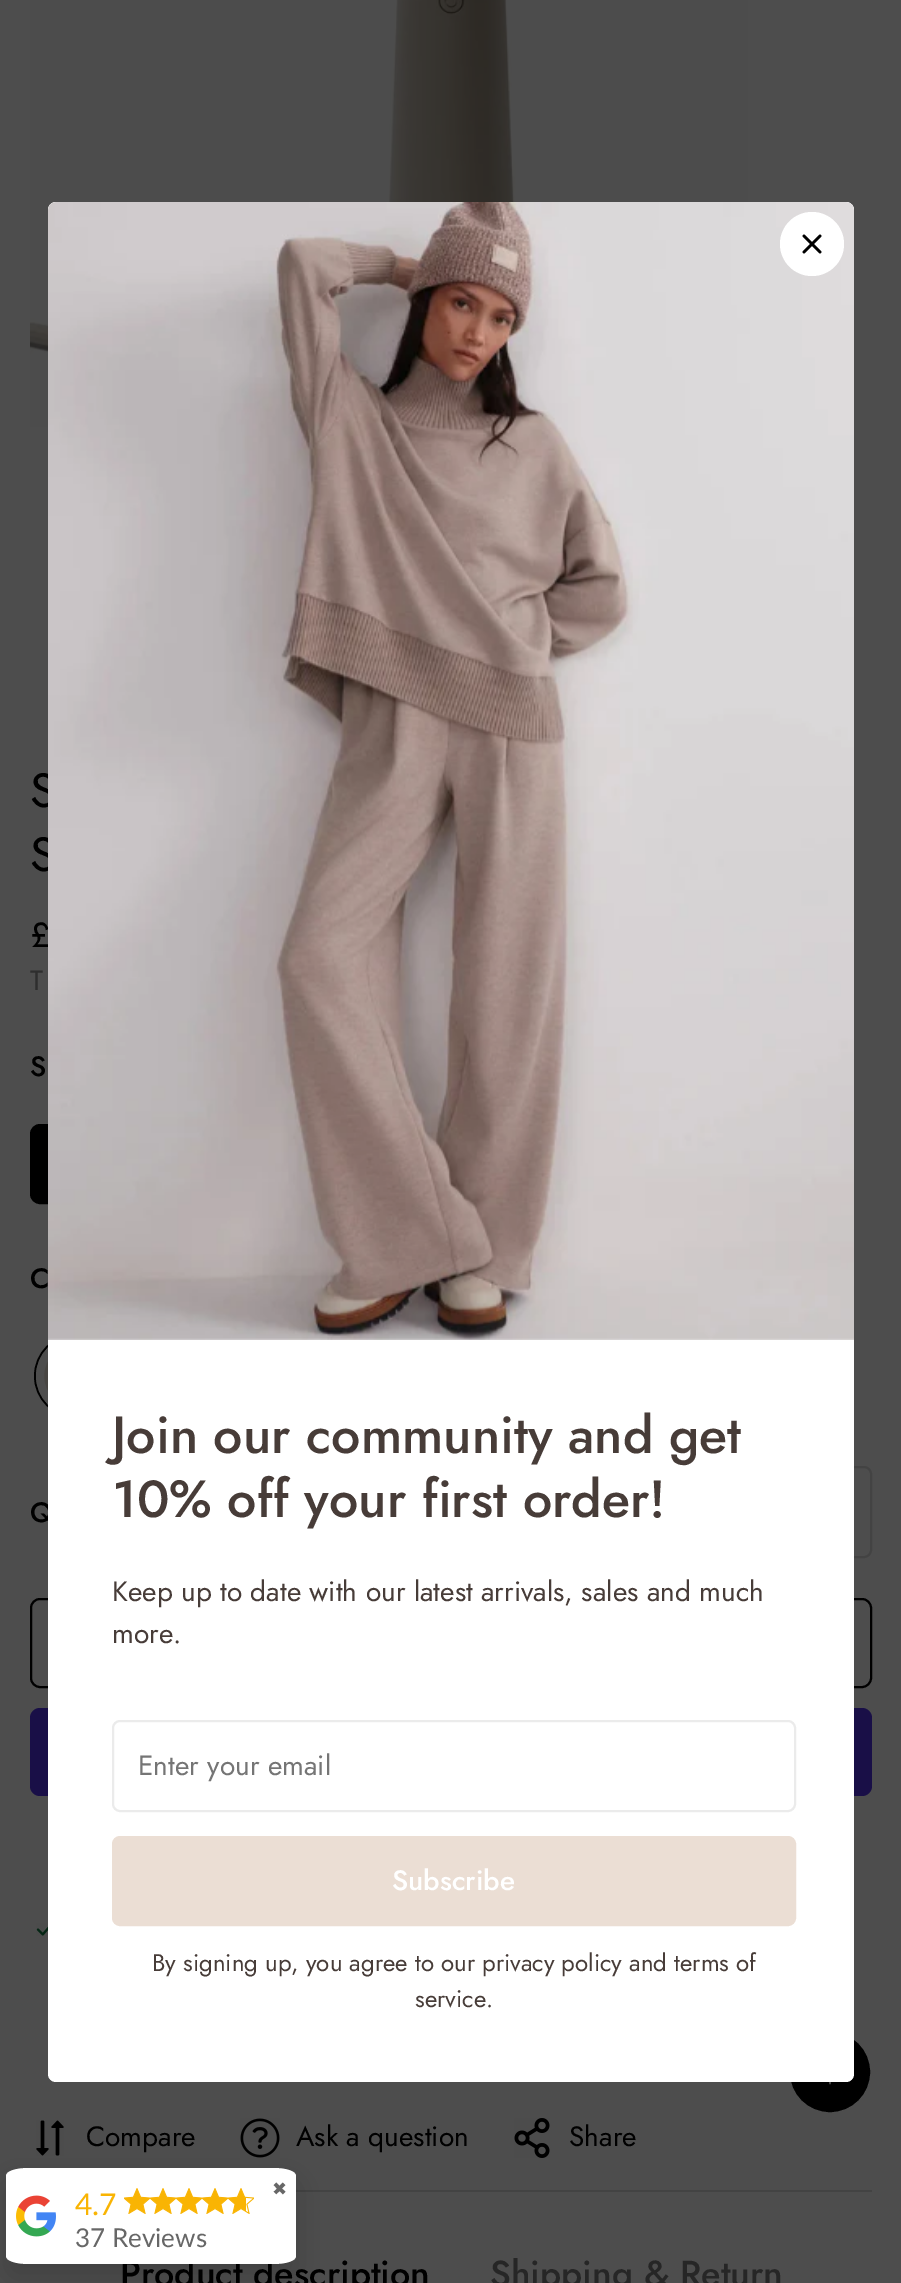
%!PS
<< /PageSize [901 2283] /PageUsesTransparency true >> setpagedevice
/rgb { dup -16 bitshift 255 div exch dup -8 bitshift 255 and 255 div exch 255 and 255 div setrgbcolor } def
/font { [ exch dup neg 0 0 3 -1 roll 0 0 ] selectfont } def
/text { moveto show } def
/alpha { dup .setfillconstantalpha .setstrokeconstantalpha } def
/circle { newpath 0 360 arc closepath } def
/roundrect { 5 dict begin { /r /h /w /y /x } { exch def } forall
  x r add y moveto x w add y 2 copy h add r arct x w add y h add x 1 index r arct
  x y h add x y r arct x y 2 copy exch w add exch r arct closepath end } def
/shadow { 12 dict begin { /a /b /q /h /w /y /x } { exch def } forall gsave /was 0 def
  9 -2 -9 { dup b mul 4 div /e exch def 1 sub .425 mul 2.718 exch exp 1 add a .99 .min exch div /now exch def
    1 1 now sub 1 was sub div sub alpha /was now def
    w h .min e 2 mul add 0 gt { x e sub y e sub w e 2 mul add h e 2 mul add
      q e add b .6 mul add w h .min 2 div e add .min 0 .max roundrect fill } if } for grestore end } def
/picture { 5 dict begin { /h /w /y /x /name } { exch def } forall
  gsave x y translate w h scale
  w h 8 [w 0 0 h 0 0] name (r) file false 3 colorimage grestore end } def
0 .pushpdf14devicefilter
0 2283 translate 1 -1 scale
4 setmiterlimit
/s1 { /Jost-Regular 48 font 16#000000 rgb } def
/s2 { /Jost-Regular 35 font 16#000000 rgb } def
/s3 { /Jost-Regular 28 font 16#2E2E2E rgb } def
/s4 { /Jost-Medium 28 font 16#000000 rgb } def
/s5 { /Jost-Regular 28 font 16#000000 rgb } def
/s6 { /Jost-Medium 36 font 16#000000 rgb } def
/s7 { /Jost-Medium 36 font 16#262626 rgb } def
/s8 { /Jost-Medium 52 font 16#473C38 rgb } def
/s9 { /Jost-Regular 28 font 16#473C38 rgb } def
/s10 { /Jost-Regular 28 font 16#757575 rgb } def
/s11 { /Jost-Medium 28 font 16#FFFFFF rgb } def
/s12 { /Jost-Regular 24 font 16#473C38 rgb } def
/s13 { /DejaVuSans-Regular 18 font 16#676767 rgb } def
/s14 { /Lato-Regular 30 font 16#F9B403 rgb } def
/s15 { /Lato-Regular 26 font 16#676767 rgb } def
16#4D4D4D rgb
0 0 901 2283 rectfill
(pic1.raw) 30 0 718 427 picture
s1
(S) 30 807 text
(S) 30 871 text
s2
(£) 30 947 text
s3
(T) 30 990 text
s4
(S) 30 1076 text
31 1125 94 78 9 roundrect gsave fill grestore
2 setlinewidth
stroke
(C) 30 1288 text
76 1376 41 circle stroke
16#474542 rgb
76 1376 36 circle gsave fill grestore
16#4D4D4D rgb
8 setlinewidth
stroke
s4
(Q) 30 1522 text
16#434343 rgb
2 setlinewidth
175 1467 696 90 7 roundrect stroke
16#000000 rgb
31 1599 840 88 9 roundrect stroke
16#190F47 rgb
30 1708 842 88 10 roundrect fill
(pic2.raw) 36 1923 12 13 picture
16#434343 rgb
296 2190 576 2 rectfill
(pic3.raw) 36 2120 28 36 picture
s5
(Compare) 86 2146 text
(pic4.raw) 240 2118 40 40 picture
(Ask a question) 296 2146 text
(pic5.raw) 514 2118 36 40 picture
(Share) 569 2146 text
s6
(Product description) 120 2286 text
s7
(Shipping & Return) 490 2286 text
16#000000 rgb
830 2072 39 circle gsave fill grestore
stroke
16#FFFFFF rgb
48 202 806 1880 8 roundrect fill
(pic6.raw) 48 202 806 1138 picture
812 244 32 circle fill
16#000000 rgb
2.7 setlinewidth
1 setlinecap
1 setlinejoin
804 252 moveto 820 236 lineto 804 236 moveto 820 252 lineto stroke
s8
(Join our community and get) 112 1453 text
(10% off your first order!) 112 1517 text
s9
(Keep up to date with our latest arrivals, sales and much) 112 1601 text
(more.) 112 1643 text
16#EBEBEB rgb
2 setlinewidth
0 setlinecap
0 setlinejoin
113 1721 682 90 7 roundrect stroke
s10
(Enter your email) 138 1775 text
16#EBDED4 rgb
113 1837 682 88 7 roundrect gsave fill grestore
stroke
s11
(Subscribe) 392 1890 text
s12
(By signing up, you agree to our privacy policy and terms of) 152 1971 text
(service.) 415 2007 text
(pic7.raw) 829 2082 2 3 picture
16#000000 rgb
6 2182 290 96 8 14 0.15 shadow
16#FFFFFF rgb
29 2168 moveto 273 2168 lineto 286 2168 296 2171 296 2176 curveto 296 2256 lineto 296 2261 286 2264 273 2264 curveto 29 2264 lineto 16 2264 6 2261 6 2256 curveto 6 2176 lineto 6 2171 16 2168 29 2168 curveto closepath fill
s13
(✖) 272 2195 text
(pic8.raw) 16 2195 40 42 picture
s14
(4.7) 75 2215 text
(pic9.raw) 124 2188 26 26 picture
(pic9.raw) 150 2188 26 26 picture
(pic9.raw) 176 2188 26 26 picture
(pic9.raw) 202 2188 26 26 picture
(pic10.raw) 228 2188 26 26 picture
s15
(37 Reviews) 75 2247 text
.poppdf14devicefilter showpage
